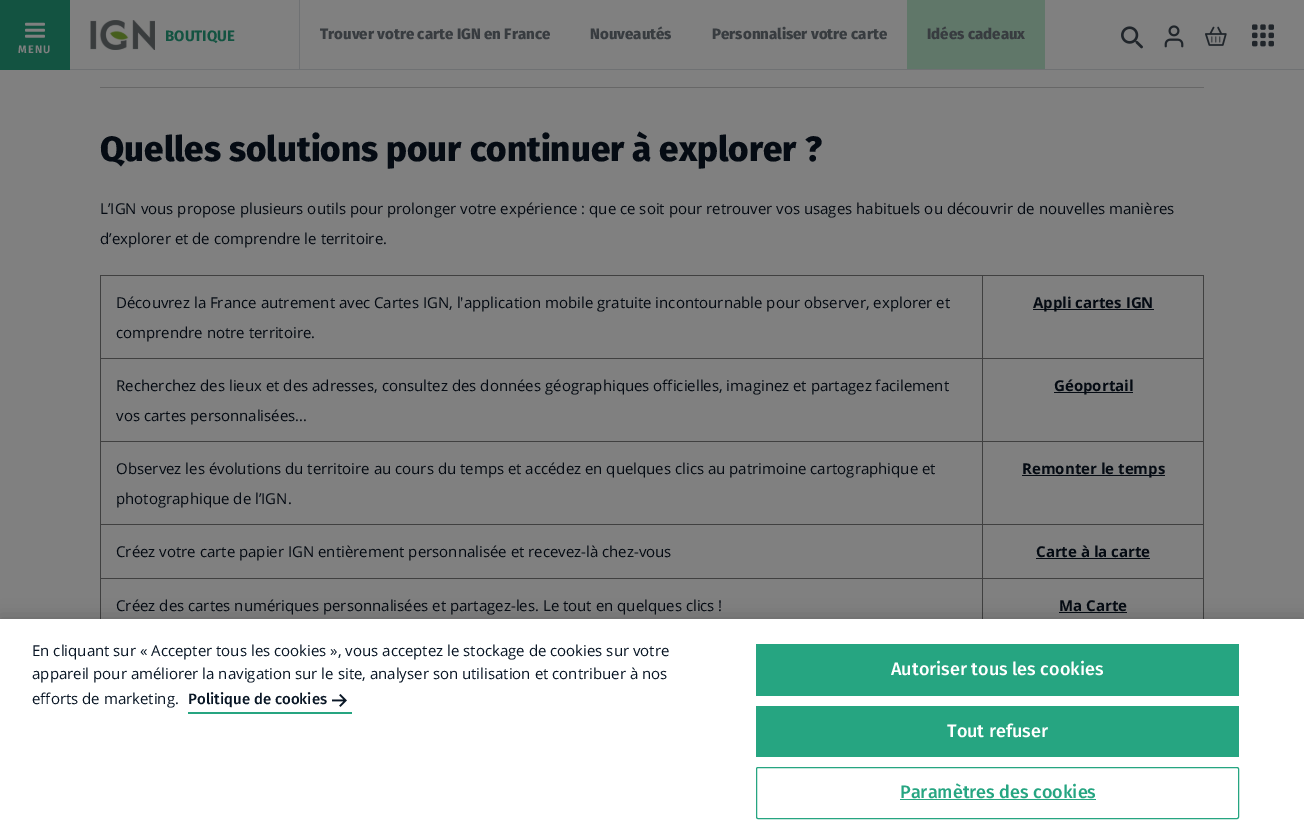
%!PS
<< /PageSize [1304 839] /PageUsesTransparency true >> setpagedevice
/rgb { dup -16 bitshift 255 div exch dup -8 bitshift 255 and 255 div exch 255 and 255 div setrgbcolor } def
/font { [ exch dup neg 0 0 3 -1 roll 0 0 ] selectfont } def
/text { moveto show } def
/alpha { dup .setfillconstantalpha .setstrokeconstantalpha } def
/roundrect { 5 dict begin { /r /h /w /y /x } { exch def } forall
  x r add y moveto x w add y 2 copy h add r arct x w add y h add x 1 index r arct
  x y h add x y r arct x y 2 copy exch w add exch r arct closepath end } def
/shadow { 12 dict begin { /a /b /q /h /w /y /x } { exch def } forall gsave /was 0 def
  9 -2 -9 { dup b mul 4 div /e exch def 1 sub .425 mul 2.718 exch exp 1 add a .99 .min exch div /now exch def
    1 1 now sub 1 was sub div sub alpha /was now def
    w h .min e 2 mul add 0 gt { x e sub y e sub w e 2 mul add h e 2 mul add
      q e add b .6 mul add w h .min 2 div e add .min 0 .max roundrect fill } if } for grestore end } def
/picture { 5 dict begin { /h /w /y /x /name } { exch def } forall
  gsave x y translate w h scale
  w h 8 [w 0 0 h 0 0] name (r) file false 3 colorimage grestore end } def
0 .pushpdf14devicefilter
0 839 translate 1 -1 scale
4 setmiterlimit
/s1 { /FiraSans-Bold 15 font 16#135341 rgb } def
/s2 { /FiraSans-ExtraBold 15 font 16#383C40 rgb } def
/s3 { /FiraSans-ExtraBold 35 font 16#050B13 rgb } def
/s4 { /OpenSans-Regular 15 font 16#050B13 rgb } def
/s5 { /OpenSans-Bold 15 font 16#050B13 rgb } def
/s6 { /OpenSans-Regular 15 font 16#091625 rgb } def
/s7 { /FiraSans-Medium 15 font 16#091625 rgb } def
/s8 { /FiraSans-Medium 18 font 16#FFFFFF rgb } def
/s9 { /FiraSans-Medium 18 font 16#26A581 rgb } def
16#808080 rgb
0 0 1304 839 rectfill
16#6F7173 rgb
299 0 1 70 rectfill
(pic1.raw) 90 20 65 30 picture
s1
(BOUTIQUE) 165 41 text
s2
(Trouver votre carte IGN en France) 320 39 text
(Nouveautés) 590 39 text
(Personnaliser votre carte) 712 39 text
16#607769 rgb
907 0 138 69 rectfill
s2
(Idées cadeaux) 927 39 text
(pic2.raw) 1121 26 22 23 picture
(pic3.raw) 1164 25 20 23 picture
(pic4.raw) 1205 26 22 20 picture
(pic5.raw) 1252 24 22 23 picture
16#135341 rgb
0 0 70 70 rectfill
(pic6.raw) 25 22 20 16 picture
/FiraSans-SemiBold 11 font
16#808080 rgb
18 53 moveto 1 0 (MENU) ashow
16#6F7173 rgb
70 69 1234 1 rectfill
16#676767 rgb
100 87 1104 1 rectfill
s3
(Quelles solutions pour continuer à explorer ?) 100 161 text
s4
(L’IGN vous propose plusieurs outils pour prolonger votre expérience : que ce soit pour retrouver vos usages habituels ou découvrir de nouvelles manières) 100 214 text
(d’explorer et de comprendre le territoire.) 100 244 text
16#404040 rgb
100 275 1104 1 rectfill
1203 275 1 344 rectfill
100 275 1 344 rectfill
s4
(Découvrez la France autrement avec Cartes IGN, l'application mobile gratuite incontournable pour observer, explorer et) 116 308 text
(comprendre notre territoire.) 116 338 text
16#404040 rgb
982 358 222 1 rectfill
982 441 222 1 rectfill
982 524 222 1 rectfill
982 578 222 1 rectfill
982 578 1 41 rectfill
100 578 883 1 rectfill
982 524 1 55 rectfill
100 524 883 1 rectfill
982 441 1 84 rectfill
100 441 883 1 rectfill
982 358 1 84 rectfill
100 358 883 1 rectfill
982 275 1 84 rectfill
16#050B13 rgb
1033 309 121 1 rectfill
s5
(Appli cartes IGN) 1033 308 text
s4
(Recherchez des lieux et des adresses, consultez des données géographiques officielles, imaginez et partagez facilement) 116 391 text
(vos cartes personnalisées...) 116 421 text
1054 392 79 1 rectfill
s5
(Géoportail) 1054 391 text
s4
(Observez les évolutions du territoire au cours du temps et accédez en quelques clics au patrimoine cartographique et) 116 474 text
(photographique de l’IGN.) 116 504 text
1022 475 143 1 rectfill
s5
(Remonter le temps) 1022 474 text
s4
(Créez votre carte papier IGN entièrement personnalisée et recevez-là chez-vous) 116 557 text
s5
(Carte à la carte) 1036 557 text
1036 558 114 1 rectfill
s4
(Créez des cartes numériques personnalisées et partagez-les. Le tout en quelques clics !) 116 611 text
s5
(Ma Carte) 1059 611 text
1059 612 68 1 rectfill
16#000000 rgb
0 619 1304 220 0 9 0.2 shadow
16#FFFFFF rgb
0 619 1304 220 rectfill
s6
(En cliquant sur « Accepter tous les cookies », vous acceptez le stockage de cookies sur votre) 32 656 text
(appareil pour améliorer la navigation sur le site, analyser son utilisation et contribuer à nos) 32 679 text
(efforts de marketing.) 32 704 text
s7
(Politique de cookies) 188 704 text
(pic7.raw) 332 694 15 13 picture
16#26A581 rgb
188 712 164 2 rectfill
756 644 483 52 rectfill
s8
(Autoriser tous les cookies) 891 675 text
16#26A581 rgb
756 706 483 51 rectfill
s8
(Tout refuser) 947 737 text
16#26A581 rgb
756.5 767.5 482 51 1.5 roundrect stroke
(Paramètres des cookies) 900 798 text
900 799 196 1 rectfill
.poppdf14devicefilter showpage
